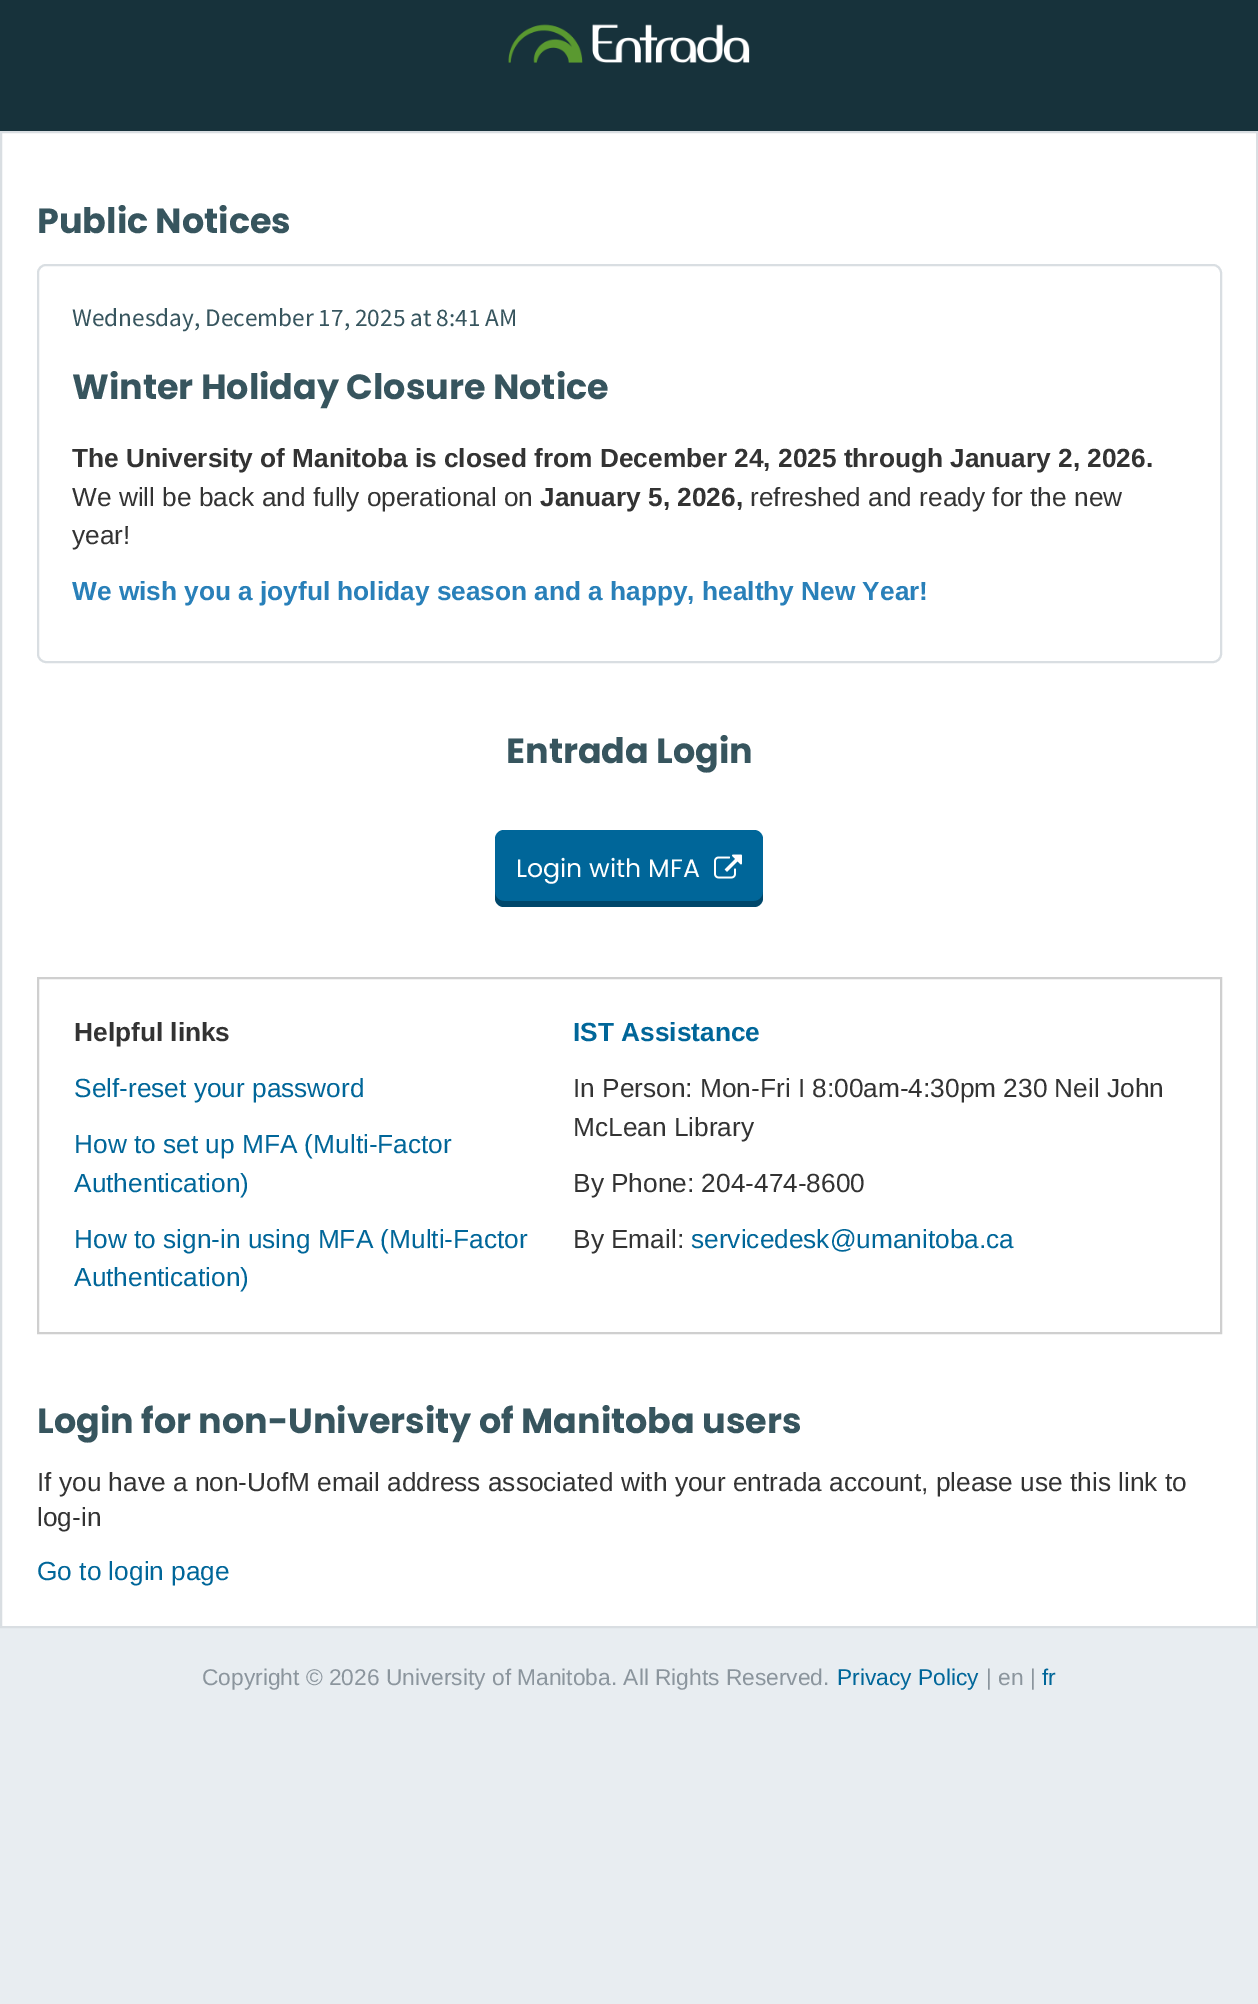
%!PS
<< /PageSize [1258 2004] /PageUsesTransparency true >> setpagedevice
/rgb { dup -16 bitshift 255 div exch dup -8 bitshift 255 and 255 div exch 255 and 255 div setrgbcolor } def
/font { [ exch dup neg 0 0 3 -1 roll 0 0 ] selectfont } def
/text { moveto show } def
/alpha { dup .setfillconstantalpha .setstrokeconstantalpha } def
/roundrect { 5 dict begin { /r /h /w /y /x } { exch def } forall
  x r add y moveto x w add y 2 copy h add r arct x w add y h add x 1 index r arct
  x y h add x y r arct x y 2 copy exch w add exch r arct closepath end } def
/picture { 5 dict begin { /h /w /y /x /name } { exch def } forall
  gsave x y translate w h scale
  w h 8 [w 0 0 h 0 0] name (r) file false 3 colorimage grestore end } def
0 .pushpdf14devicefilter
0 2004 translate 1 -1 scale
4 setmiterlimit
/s1 { /Poppins-Bold 35 font 16#37555E rgb } def
/s2 { /SourceSansPro-Regular 25.25 font 16#37555E rgb } def
/s3 { /LiberationSans-Bold 26.25 font 16#333333 rgb } def
/s4 { /LiberationSans-Regular 26.25 font 16#333333 rgb } def
/s5 { /LiberationSans-Bold 26.25 font 16#2980B9 rgb } def
/s6 { /Poppins-Regular 25.25 font 16#FFFFFF rgb } def
/s7 { /LiberationSans-Regular 26.25 font 16#006699 rgb } def
/s8 { /LiberationSans-Bold 26.25 font 16#006699 rgb } def
/s9 { /LiberationSans-Regular 22.75 font 16#8B959D rgb } def
/s10 { /LiberationSans-Regular 22.75 font 16#006699 rgb } def
16#E8EDF1 rgb
0 0 1258 2004 rectfill
16#17323B rgb
0 0 1258 131 rectfill
(pic1.raw) 508 24 242 39 picture
16#FFFFFF rgb
1 132 moveto 1257 132 lineto 1257 1627 lineto 1 1627 lineto closepath gsave fill grestore
16#D9DEE2 rgb
2 setlinewidth
stroke
s1
(Public Notices) 37 233 text
16#D9DEE2 rgb
38 265 1183 397 8 roundrect stroke
s2
(Wednesday, December 17, 2025 at 8:41 AM) 72 326 text
s1
(Winter Holiday Closure Notice) 72 399 text
s3
(The University of Manitoba is closed from December 24, 2025 through January 2, 2026.) 72 467 text
s4
(We will be back and fully operational on) 72 506 text
s3
(January 5, 2026,) 540 506 text
s4
(refreshed and ready for the new) 750 506 text
(year!) 72 544 text
s5
(We wish you a joyful holiday season and a happy, healthy New Year!) 72 600 text
s1
(Entrada Login) 506 763 text
16#006699 rgb
495 830 268 77 9 roundrect fill
0.3 alpha
16#000000 rgb
495 892 moveto 495 898 lineto 495 903 499 907 504 907 curveto 754 907 lineto 759 907 763 903 763 898 curveto 763 892 lineto 763 897 759 901 754 901 curveto 504 901 lineto 499 901 495 897 495 892 curveto closepath fill
1 alpha
s6
(Login with MFA) 516 877 text
(pic2.raw) 714 854 28 25 picture
16#CFCFCF rgb
38 978 1183 355 rectstroke
s3
(Helpful links) 74 1041 text
s7
(Self-reset your password) 74 1097 text
(How to set up MFA \(Multi-Factor) 74 1153 text
(Authentication\)) 74 1192 text
(How to sign-in using MFA \(Multi-Factor) 74 1248 text
(Authentication\)) 74 1286 text
s8
(IST Assistance) 573 1041 text
s4
(In Person: Mon-Fri I 8:00am-4:30pm 230 Neil John) 573 1097 text
(McLean Library) 573 1136 text
(By Phone: 204-474-8600) 573 1192 text
(By Email:) 573 1248 text
s7
(servicedesk@umanitoba.ca) 691 1248 text
s1
(Login for non-University of Manitoba users) 37 1433 text
s4
(If you have a non-UofM email address associated with your entrada account, please use this link to) 37 1491 text
(log-in) 37 1526 text
s7
(Go to login page) 37 1580 text
s9
(Copyright © 2026 University of Manitoba. All Rights Reserved.) 202 1685 text
s10
(Privacy Policy) 837 1685 text
s9
(| en |) 986 1685 text
s10
(fr) 1042 1685 text
.poppdf14devicefilter showpage
